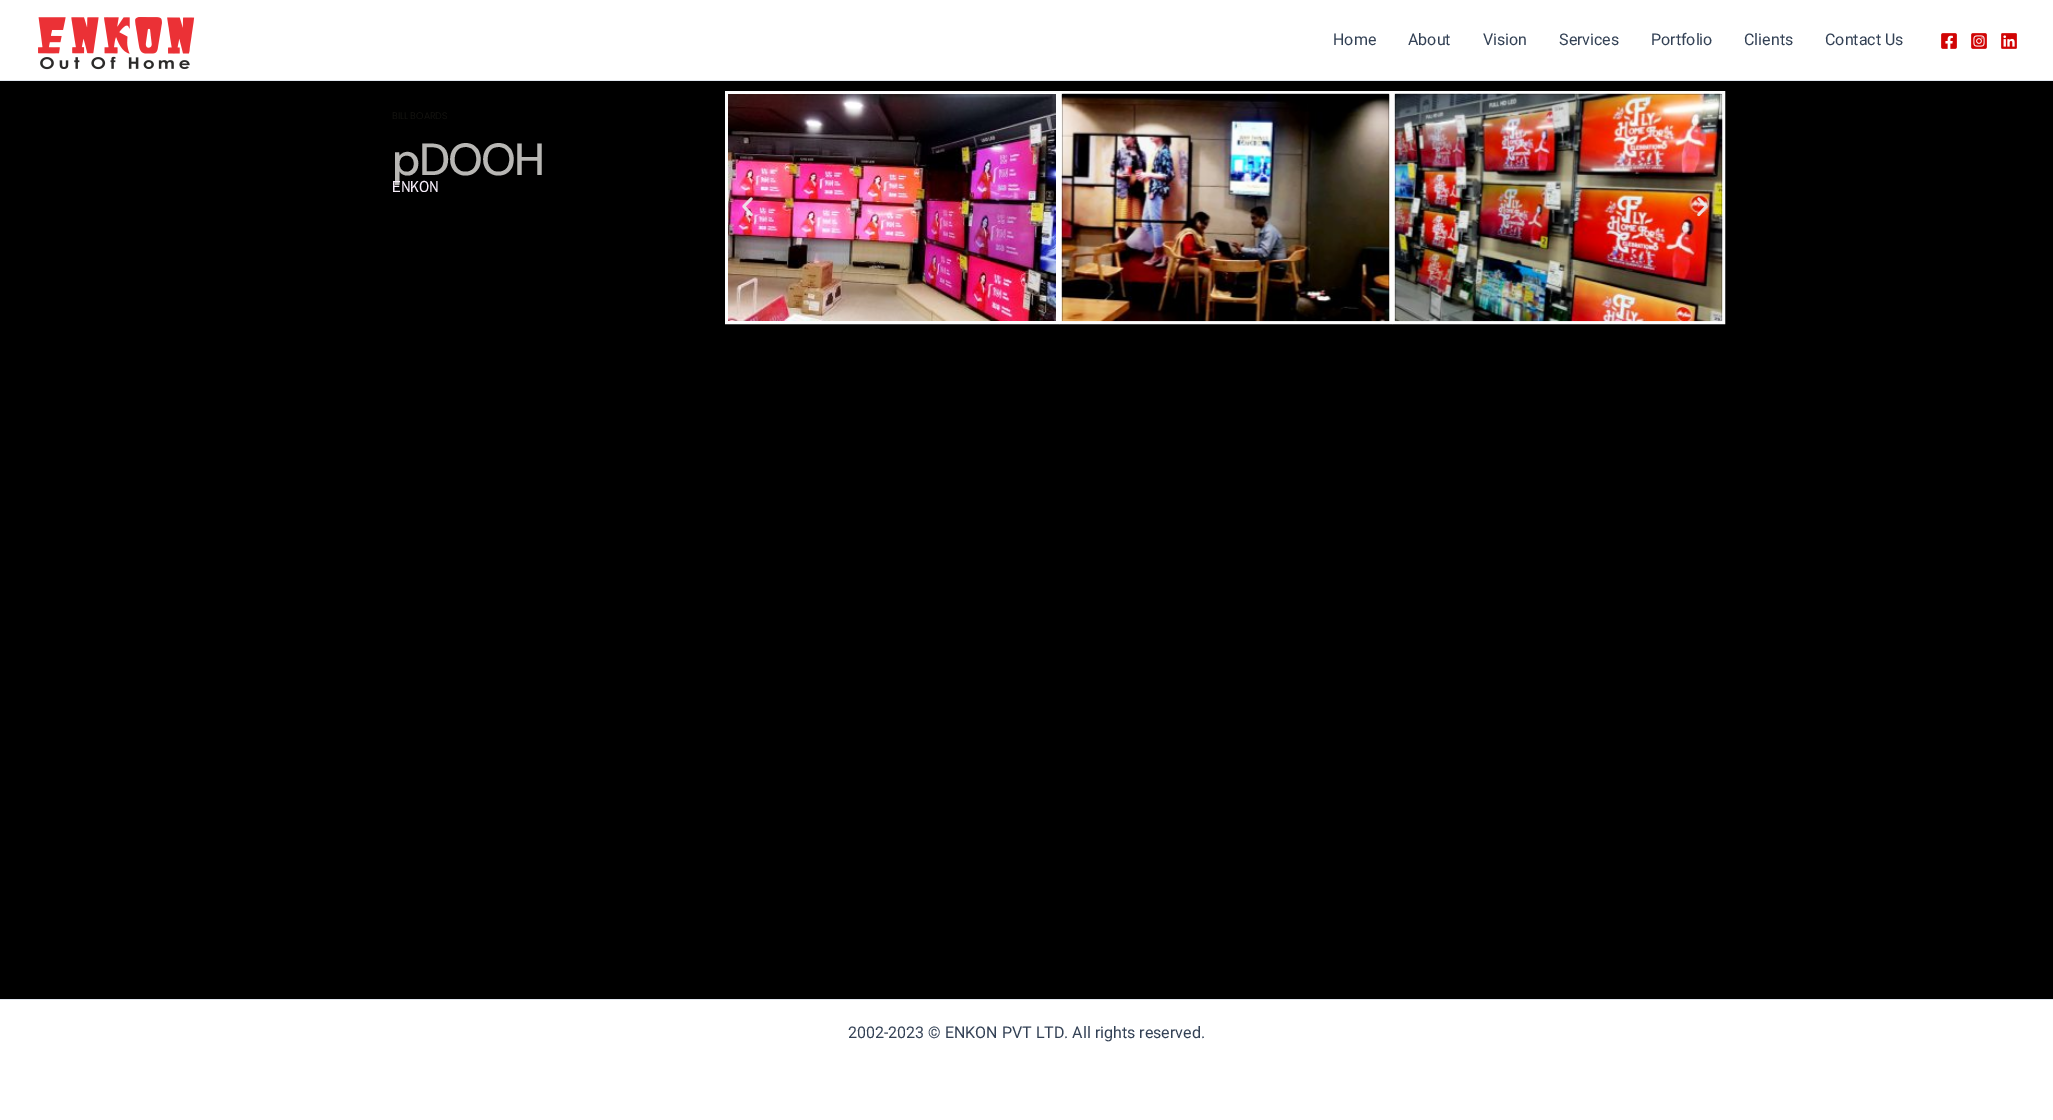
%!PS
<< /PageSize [2053 1120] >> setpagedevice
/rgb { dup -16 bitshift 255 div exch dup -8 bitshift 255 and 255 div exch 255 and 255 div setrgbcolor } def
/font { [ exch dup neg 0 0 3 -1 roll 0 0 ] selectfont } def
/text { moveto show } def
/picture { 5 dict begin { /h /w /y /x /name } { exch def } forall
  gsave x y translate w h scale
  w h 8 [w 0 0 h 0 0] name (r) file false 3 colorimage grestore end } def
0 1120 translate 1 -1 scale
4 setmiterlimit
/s1 { /Roboto-Regular 16 font 16#334155 rgb } def
/s2 { /Poppins-Light 9.5 font 16#161511 rgb } def
/s3 { /PragatiNarrow-Regular 17.5 font 16#F7EEFA rgb } def
16#000000 rgb
0 0 2053 1120 rectfill
16#FFFFFF rgb
0 0 2053 80 rectfill
16#E2E8F0 rgb
0 80 2053 1 rectfill
(pic1.raw) 38 17 157 53 picture
s1
(Home) 1333 45 text
(About) 1408 45 text
(Vision) 1483 45 text
(Services) 1559 45 text
(Portfolio) 1651 45 text
(Clients) 1744 45 text
(Contact Us) 1825 45 text
(pic2.raw) 1941 33 16 16 picture
(pic3.raw) 1971 33 16 16 picture
(pic4.raw) 2001 33 16 16 picture
s2
(BILL BOARDS) 392 119 text
/DMSans-Medium 45 font
16#B8B7B4 rgb
392 175 moveto -2 0 (pDOOH) ashow
gsave
392 109 213 83 rectclip
s3
(ENKON) 392 192 text
grestore
16#FDFDFD rgb
3 setlinewidth
726.5 92.5 331 230 rectstroke
(pic5.raw) 728 94 328 227 picture
1060.5 92.5 330 230 rectstroke
(pic6.raw) 1061 93 329 229 picture
1393.5 92.5 330 230 rectstroke
(pic7.raw) 1394 93 329 229 picture
(pic8.raw) 742 197 11 20 picture
(pic9.raw) 1697 197 11 20 picture
16#FFFFFF rgb
0 1000 2053 120 rectfill
16#E2E8F0 rgb
0 999 2053 1 rectfill
s1
(2002-2023 © ENKON PVT LTD. All rights reserved.) 848 1038 text
showpage
